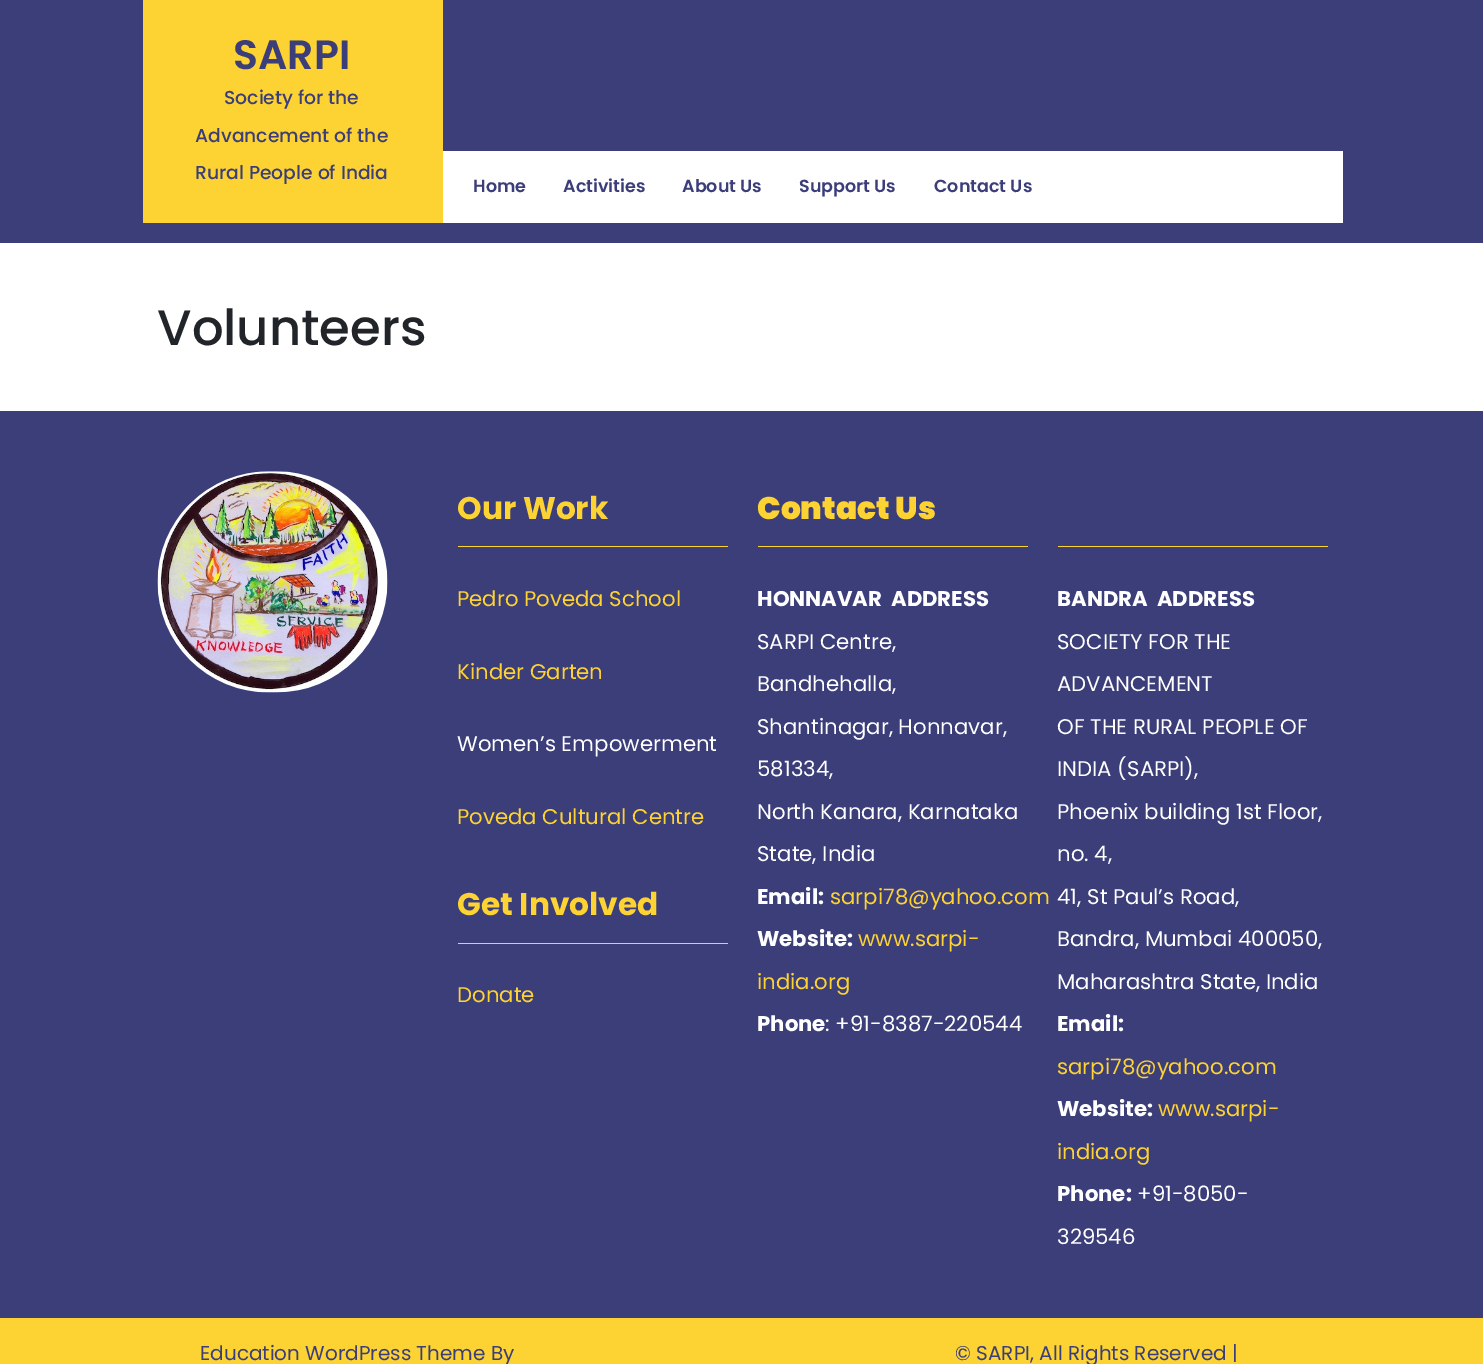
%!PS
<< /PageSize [1483 1364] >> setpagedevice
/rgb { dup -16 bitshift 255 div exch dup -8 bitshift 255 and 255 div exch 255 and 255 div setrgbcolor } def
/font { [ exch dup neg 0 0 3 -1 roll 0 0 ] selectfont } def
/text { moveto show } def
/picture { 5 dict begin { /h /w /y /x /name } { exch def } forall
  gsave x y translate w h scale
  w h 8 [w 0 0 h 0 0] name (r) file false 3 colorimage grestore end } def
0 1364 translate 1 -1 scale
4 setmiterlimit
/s1 { /Poppins-SemiBold 41 font 16#3C3E79 rgb } def
/s2 { /Poppins-Medium 18.75 font 16#3C3E79 rgb } def
/s3 { /Poppins-SemiBold 17.5 font 16#3C3E79 rgb } def
/s4 { /Poppins-Medium 49.75 font 16#212529 rgb } def
/s5 { /Poppins-Bold 31.25 font 16#FDD333 rgb } def
/s6 { /Poppins-Regular 21.25 font 16#FDD333 rgb } def
/s7 { /Poppins-Regular 21.25 font 16#FFFFFF rgb } def
/s8 { /Poppins-Black 31.25 font 16#FDD333 rgb } def
/s9 { /Poppins-Bold 21.25 font 16#FFFFFF rgb } def
/s10 { /Poppins-Regular 20 font 16#3C3E79 rgb } def
16#FFFFFF rgb
0 0 1483 1364 rectfill
16#3C3E79 rgb
0 0 1483 243 rectfill
16#FDD333 rgb
143 0 300 223 rectfill
s1
(SARPI) 233 69 text
s2
(Society for the) 224 104 text
(Advancement of the) 195 142 text
(Rural People of India) 195 179 text
16#FFFFFF rgb
443 151 900 72 rectfill
s3
(Home) 473 192 text
(Activities) 563 192 text
(About Us) 682 192 text
(Support Us) 799 192 text
(Contact Us) 934 192 text
s4
(Volunteers) 157 345 text
16#3C3E79 rgb
0 411 1483 907 rectfill
(pic1.raw) 157 471 231 222 picture
16#FDD333 rgb
458 546 270 1 rectfill
s5
(Our Work) 457 519 text
s6
(Pedro Poveda School) 457 606 text
(Kinder Garten) 457 679 text
s7
(Women’s Empowerment) 457 751 text
s6
(Poveda Cultural Centre) 457 824 text
458 943 270 1 rectfill
s5
(Get Involved) 457 915 text
s6
(Donate) 457 1002 text
758 546 270 1 rectfill
s8
(Contact Us) 757 519 text
s9
(HONNAVAR  ADDRESS) 757 606 text
s7
(SARPI Centre,) 757 649 text
(Bandhehalla,) 757 691 text
(Shantinagar, Honnavar,) 757 734 text
(581334,) 757 776 text
(North Kanara, Karnataka) 757 819 text
(State, India) 757 861 text
s9
(Email:) 757 904 text
s6
(sarpi78@yahoo.com) 830 904 text
s9
(Website:) 757 946 text
s6
(www.sarpi-) 858 946 text
(india.org) 757 989 text
s9
(Phone) 757 1031 text
s7
(: +91-8387-220544) 825 1031 text
16#FDD333 rgb
1058 546 270 1 rectfill
s9
(BANDRA  ADDRESS) 1057 606 text
s7
(SOCIETY FOR THE) 1057 649 text
(ADVANCEMENT) 1057 691 text
(OF THE RURAL PEOPLE OF) 1057 734 text
(INDIA \(SARPI\),) 1057 776 text
(Phoenix building 1st Floor,) 1057 819 text
(no. 4,) 1057 861 text
(41, St Paul’s Road,) 1057 904 text
(Bandra, Mumbai 400050,) 1057 946 text
(Maharashtra State, India) 1057 989 text
s9
(Email:) 1057 1031 text
s6
(sarpi78@yahoo.com) 1057 1074 text
s9
(Website:) 1057 1116 text
s6
(www.sarpi-) 1158 1116 text
(india.org) 1057 1159 text
s9
(Phone:) 1057 1201 text
s7
(+91-8050-) 1137 1201 text
(329546) 1057 1244 text
16#FDD333 rgb
0 1318 1483 46 rectfill
s10
(Education WordPress Theme By) 200 1360 text
(© SARPI, All Rights Reserved |) 955 1360 text
showpage
